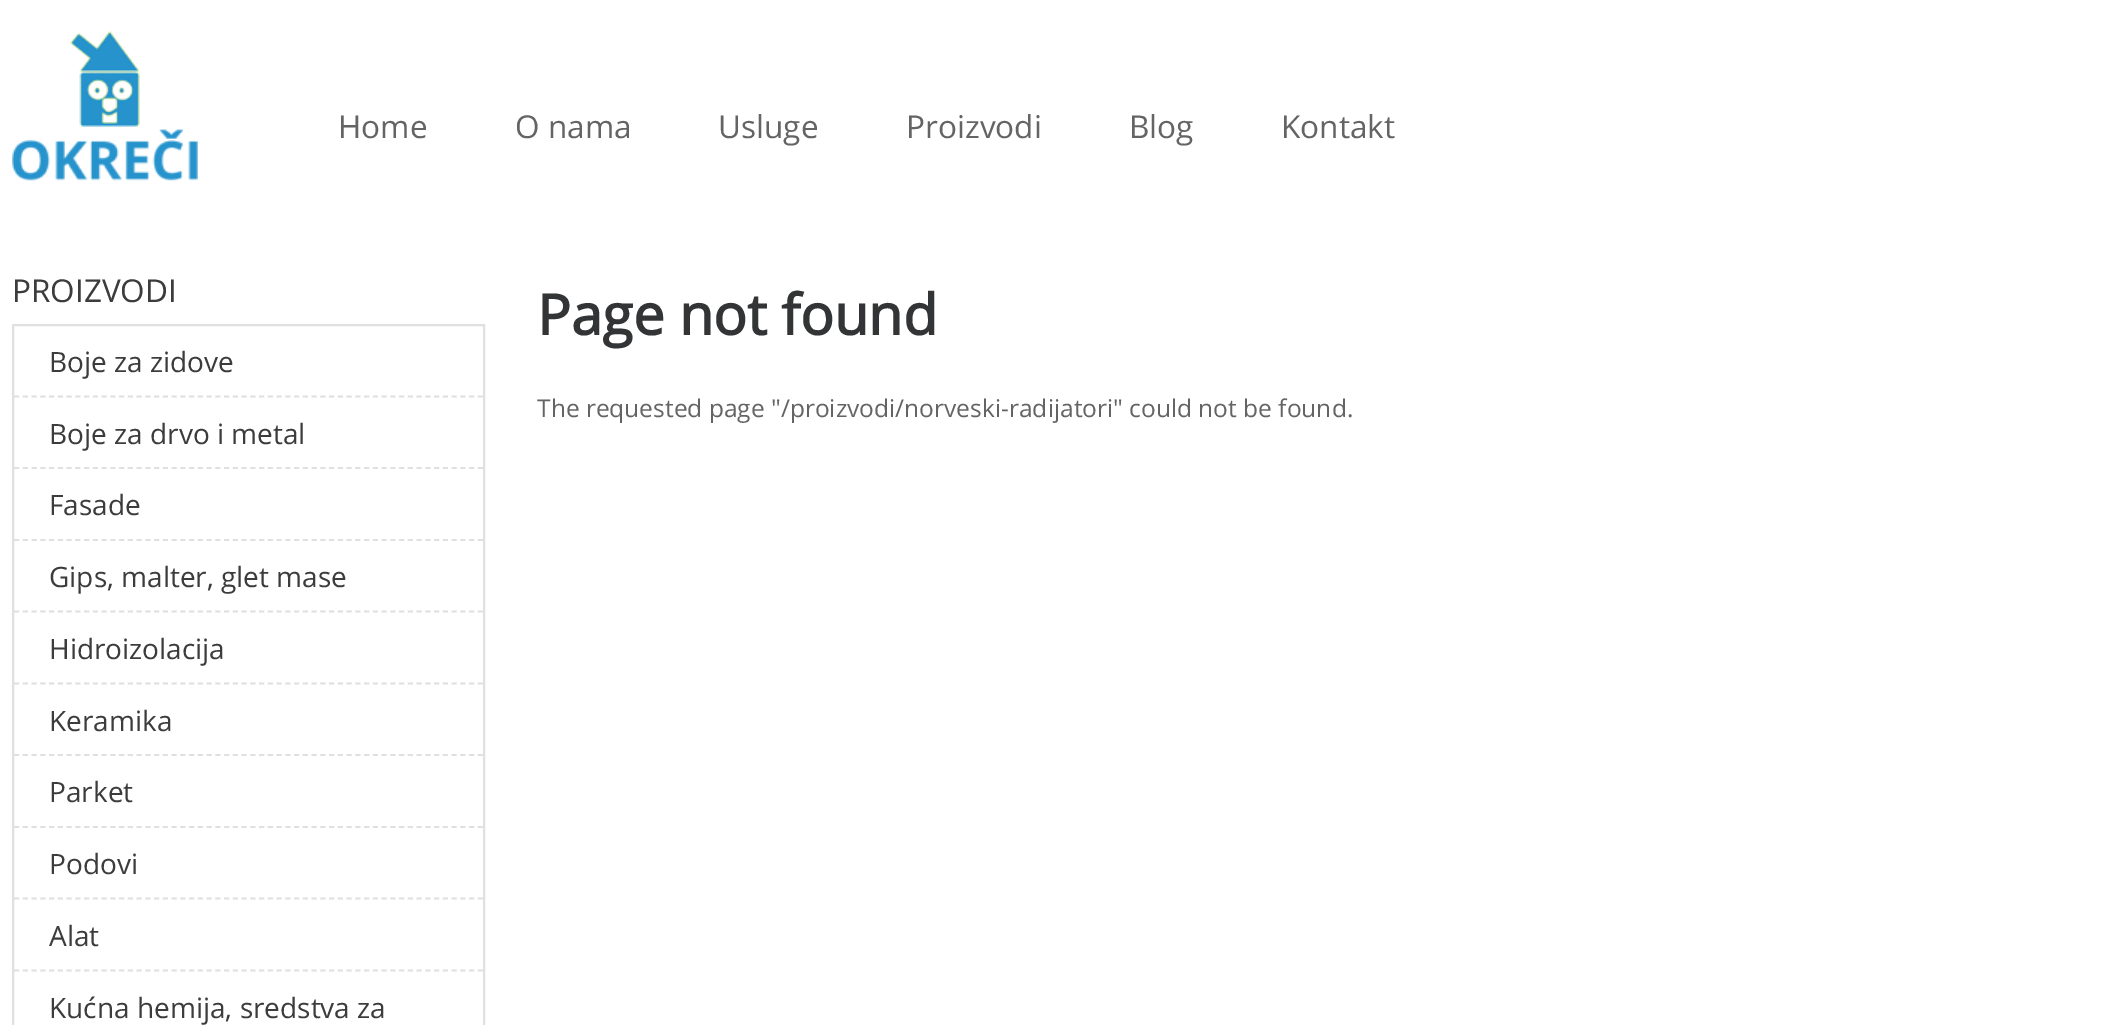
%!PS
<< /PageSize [2123 1025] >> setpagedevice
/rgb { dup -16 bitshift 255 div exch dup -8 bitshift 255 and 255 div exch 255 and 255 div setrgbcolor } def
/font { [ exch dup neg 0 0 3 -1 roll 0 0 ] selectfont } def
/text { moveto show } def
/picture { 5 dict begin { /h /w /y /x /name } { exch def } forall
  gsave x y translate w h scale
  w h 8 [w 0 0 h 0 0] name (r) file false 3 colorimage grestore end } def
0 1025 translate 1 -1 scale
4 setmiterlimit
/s1 { /OpenSans-Regular 31.5 font 16#646464 rgb } def
/s2 { /OpenSans-Regular 31.5 font 16#3C3C3C rgb } def
/s3 { /OpenSans-Regular 28 font 16#3C3C3C rgb } def
/s4 { /OpenSans-Bold 56 font 16#333435 rgb } def
/s5 { /OpenSans-Regular 24.5 font 16#646464 rgb } def
16#FFFFFF rgb
0 0 2123 1025 rectfill
(pic1.raw) 12 31 186 150 picture
s1
(Home) 338 138 text
(O nama) 515 138 text
(Usluge) 718 138 text
(Proizvodi) 906 138 text
(Blog) 1129 138 text
(Kontakt) 1281 138 text
s2
(PROIZVODI) 12 302 text
16#E0E0E0 rgb
2 setlinewidth
13 325 471 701 rectstroke
1.8 setlinewidth
[5.25 3.5] 0 setdash
14 396.5 moveto 483 396.5 lineto stroke
s3
(Boje za zidove) 49 372 text
16#E0E0E0 rgb
14 468 moveto 483 468 lineto stroke
s3
(Boje za drvo i metal) 49 444 text
16#E0E0E0 rgb
14 540 moveto 483 540 lineto stroke
s3
(Fasade) 49 515 text
16#E0E0E0 rgb
14 611.5 moveto 483 611.5 lineto stroke
s3
(Gips, malter, glet mase) 49 587 text
16#E0E0E0 rgb
14 683.5 moveto 483 683.5 lineto stroke
s3
(Hidroizolacija) 49 659 text
16#E0E0E0 rgb
14 755 moveto 483 755 lineto stroke
s3
(Keramika) 49 731 text
16#E0E0E0 rgb
14 827 moveto 483 827 lineto stroke
s3
(Parket) 49 802 text
16#E0E0E0 rgb
14 898.5 moveto 483 898.5 lineto stroke
s3
(Podovi) 49 874 text
16#E0E0E0 rgb
14 970.5 moveto 483 970.5 lineto stroke
s3
(Alat) 49 946 text
(Kućna hemija, sredstva za) 49 1018 text
s4
(Page not found) 537 335 text
s5
(The requested page "/proizvodi/norveski-radijatori" could not be found.) 537 417 text
showpage
